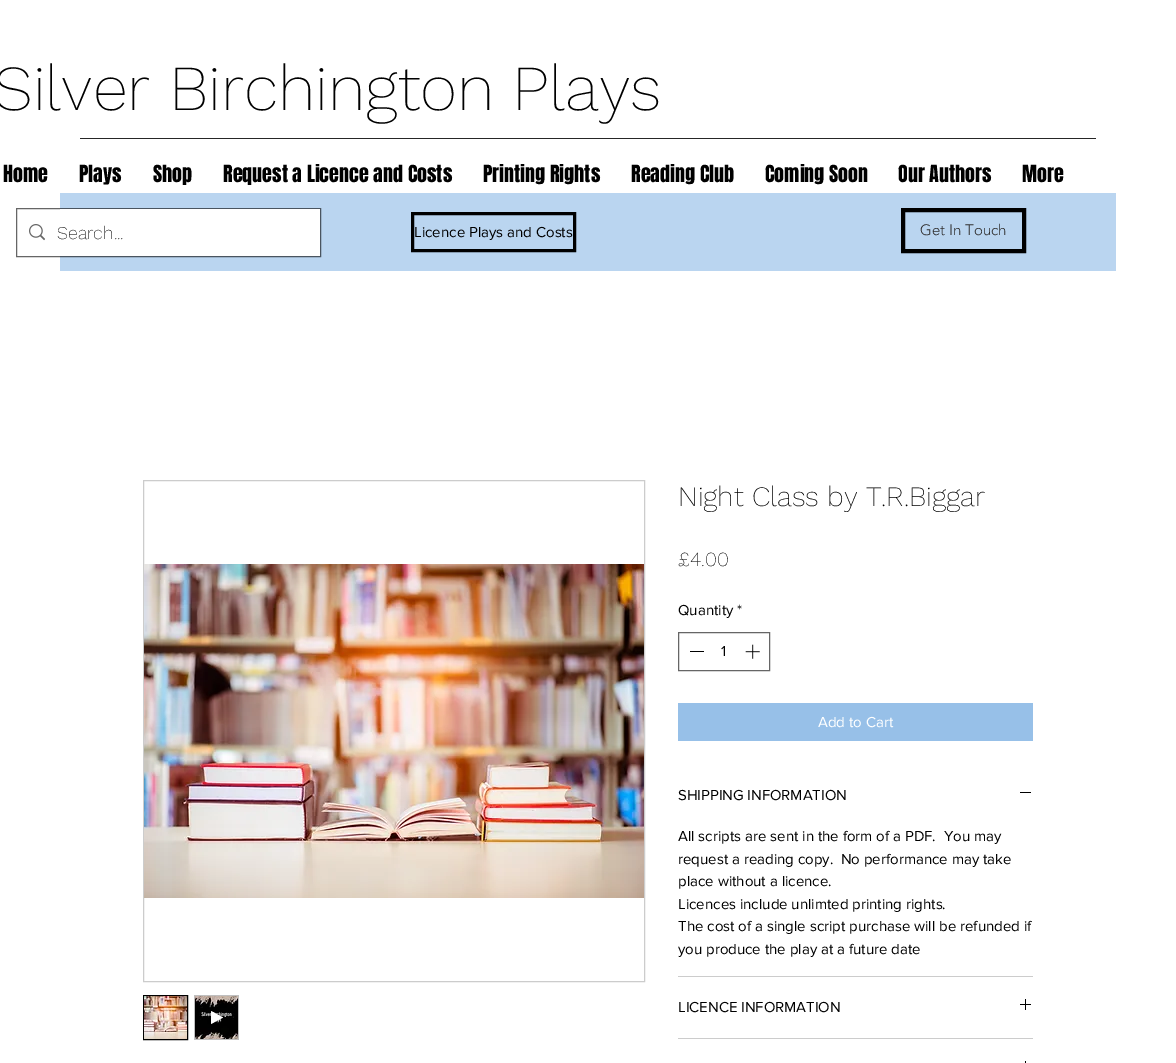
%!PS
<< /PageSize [1176 1063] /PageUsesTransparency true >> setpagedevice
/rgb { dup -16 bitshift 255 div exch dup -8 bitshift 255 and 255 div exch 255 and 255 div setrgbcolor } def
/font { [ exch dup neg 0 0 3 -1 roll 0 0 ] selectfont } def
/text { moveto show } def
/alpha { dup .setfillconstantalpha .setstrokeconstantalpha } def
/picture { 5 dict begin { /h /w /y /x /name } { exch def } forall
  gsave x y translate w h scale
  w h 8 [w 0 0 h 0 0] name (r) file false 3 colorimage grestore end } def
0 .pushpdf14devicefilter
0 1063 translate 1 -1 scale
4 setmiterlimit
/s1 { /WorkSans-ExtraLight 64 font 16#000000 rgb } def
/s2 { /Anton-Regular 20 font 16#000000 rgb } def
/s3 { /WorkSans-ExtraLight 18 font 16#000000 rgb } def
/s4 { /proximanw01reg-Regular 15 font 16#000000 rgb } def
/s5 { /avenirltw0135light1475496-Light 15 font 16#2F2E2E rgb } def
/s6 { /WorkSans-ExtraLight 28 font 16#000000 rgb } def
/s7 { /WorkSans-ExtraLight 20 font 16#000000 rgb } def
/s8 { /proximanw01reg-Regular 15 font 16#FFFFFF rgb } def
16#FFFFFF rgb
0 0 1176 1063 rectfill
s1
(Silver Birchington Plays) -6 110 text
16#262626 rgb
80 138 1016 1 rectfill
s2
(Home) 3 182 text
(Plays) 79 182 text
(Shop) 153 182 text
(Request a Licence and Costs) 223 182 text
(Printing Rights) 483 182 text
(Reading Club) 631 182 text
(Coming Soon) 765 182 text
(Our Authors) 898 182 text
(More) 1022 182 text
16#BAD5F0 rgb
60 193 1056 78 rectfill
0.6 alpha
16#000000 rgb
16.5 208.5 304 48 rectstroke
1 alpha
16#FFFFFF rgb
60 209 260 47 rectfill
(pic1.raw) 29 224 16 17 picture
s3
(Search...) 57 239 text
3 setlinewidth
412.5 213.5 162 37 rectstroke
s4
(Licence Plays and Costs) 414 237 text
4 setlinewidth
903 210 121 41 rectstroke
s5
(Get In Touch) 920 235 text
16#CCCCCC rgb
1 setlinewidth
143.5 480.5 501 501 rectstroke
(pic2.raw) 144 564 500 334 picture
16#000000 rgb
143.5 995.5 44 44 rectstroke
(pic3.raw) 144 996 43 43 picture
16#BFBFBF rgb
194 995 45 45 rectfill
(pic4.raw) 195 996 43 43 picture
16#FFFFFF rgb
211 1011 moveto 211 1024 lineto 223 1017.5 lineto closepath fill
s6
(Night Class by T.R.Biggar) 678 506 text
s7
(£4.00) 678 566 text
s4
(Quantity *) 678 615 text
16#666666 rgb
678.5 632.5 91 38 rectstroke
16#000000 rgb
690 651 14 1 rectfill
(1) 721 656 text
(pic5.raw) 745 644 15 15 picture
16#97C0E8 rgb
678 703 355 38 rectfill
s8
(Add to Cart) 818 727 text
16#CCCCCC rgb
678 976 355 1 rectfill
s4
(SHIPPING INFORMATION) 678 800 text
1020 792 11 1 rectfill
(All scripts are sent in the form of a PDF.  You may) 678 841 text
(request a reading copy.  No performance may take) 678 864 text
(place without a licence.) 678 886 text
(Licences include unlimted printing rights.) 678 909 text
(The cost of a single script purchase will be refunded if) 678 931 text
(you produce the play at a future date) 678 954 text
16#CCCCCC rgb
678 1038 355 1 rectfill
s4
(LICENCE INFORMATION) 678 1012 text
(pic6.raw) 1020 999 11 11 picture
1025 1061 1 2 rectfill
.poppdf14devicefilter showpage
